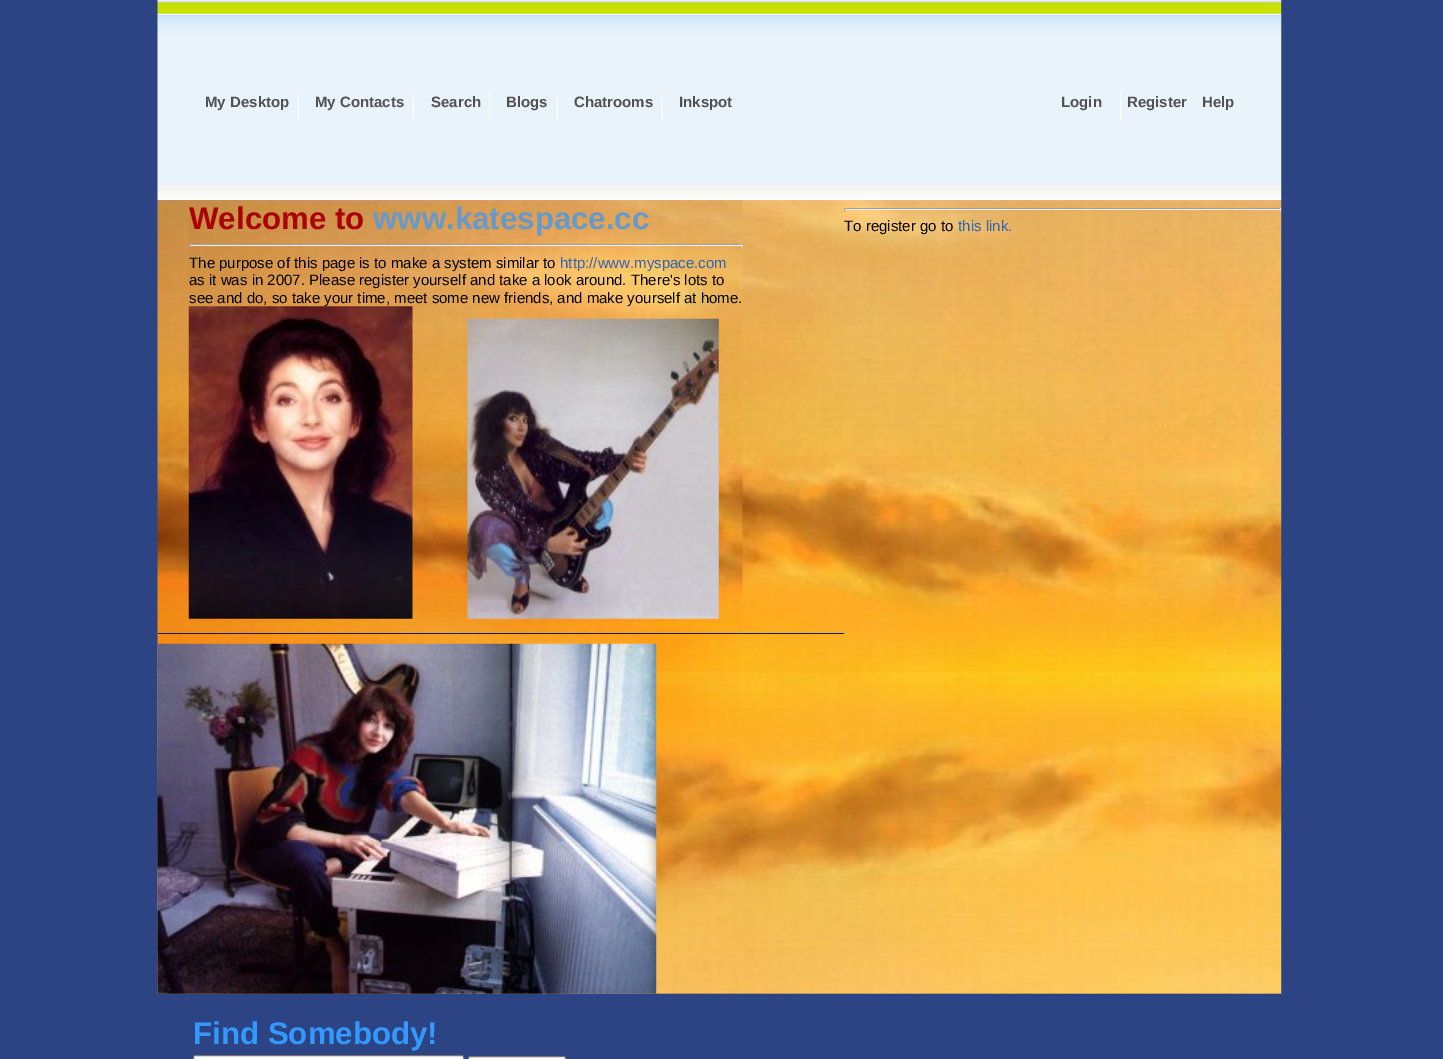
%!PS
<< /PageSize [1443 1059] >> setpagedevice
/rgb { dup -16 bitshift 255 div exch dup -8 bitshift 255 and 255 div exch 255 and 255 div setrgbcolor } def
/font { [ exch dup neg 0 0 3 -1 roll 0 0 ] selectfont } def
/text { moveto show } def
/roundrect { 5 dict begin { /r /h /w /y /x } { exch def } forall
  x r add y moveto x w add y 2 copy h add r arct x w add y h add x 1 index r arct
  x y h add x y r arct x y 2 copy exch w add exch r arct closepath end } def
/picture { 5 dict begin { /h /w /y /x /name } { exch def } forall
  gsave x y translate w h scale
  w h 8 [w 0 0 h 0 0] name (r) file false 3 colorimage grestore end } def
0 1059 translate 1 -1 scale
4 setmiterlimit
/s1 { /LiberationSans-Bold 15 font 16#515151 rgb } def
/s2 { /LiberationSans-Bold 31.25 font 16#AA0000 rgb } def
/s3 { /LiberationSans-Bold 31.25 font 16#6699CC rgb } def
/s4 { /LiberationSans-Regular 15 font 16#000000 rgb } def
/s5 { /LiberationSans-Regular 15 font 16#2F63B3 rgb } def
/s6 { /LiberationSans-Bold 31.25 font 16#3399FF rgb } def
16#2C4384 rgb
0 0 1443 1059 rectfill
(pic1.raw) 157 0 1125 200 picture
s1
(My Desktop) 205 107 text
(pic2.raw) 296 90 3 30 picture
(My Contacts) 315 107 text
(pic2.raw) 411 90 3 30 picture
(Search) 431 107 text
(pic3.raw) 487 89 3 31 picture
(Blogs) 506 107 text
(pic4.raw) 555 89 3 31 picture
(Chatrooms) 574 107 text
(pic4.raw) 660 89 3 31 picture
(Inkspot) 679 107 text
(Login) 1061 107 text
(pic5.raw) 1118 90 4 30 picture
(Register) 1127 107 text
(Help) 1202 107 text
(pic6.raw) 157 200 1125 794 picture
(pic7.raw) 188 200 555 423 picture
s2
(Welcome to) 189 229 text
s3
(www.katespace.cc) 373 229 text
16#9F9F9F rgb
189 244 554 1 rectfill
16#EEEEEE rgb
741 244 1 3 rectfill
189 245 554 1 rectfill
16#9F9F9F rgb
189 244 1 3 rectfill
s4
(The purpose of this page is to make a system similar to) 189 268 text
s5
(http://www.myspace.com) 560 268 text
s4
(as it was in 2007. Please register yourself and take a look around. There's lots to) 189 285 text
(see and do, so take your time, meet some new friends, and make yourself at home.) 189 303 text
(pic8.raw) 188 306 225 313 picture
(pic9.raw) 467 318 252 301 picture
16#9F9F9F rgb
844 208 437 1 rectfill
16#EEEEEE rgb
1280 208 1 3 rectfill
844 209 437 1 rectfill
16#9F9F9F rgb
844 208 1 3 rectfill
s4
(To register go to) 844 231 text
s5
(this link.) 958 231 text
16#0A1D58 rgb
158 633 686 1 rectfill
(pic10.raw) 157 643 500 351 picture
s6
(Find Somebody!) 193 1044 text
16#FFFFFF rgb
193.5 1055.5 270 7 2 roundrect gsave fill grestore
16#767676 rgb
stroke
16#FFFFFF rgb
468.5 1056.5 97 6 2 roundrect gsave fill grestore
16#767676 rgb
stroke
showpage
